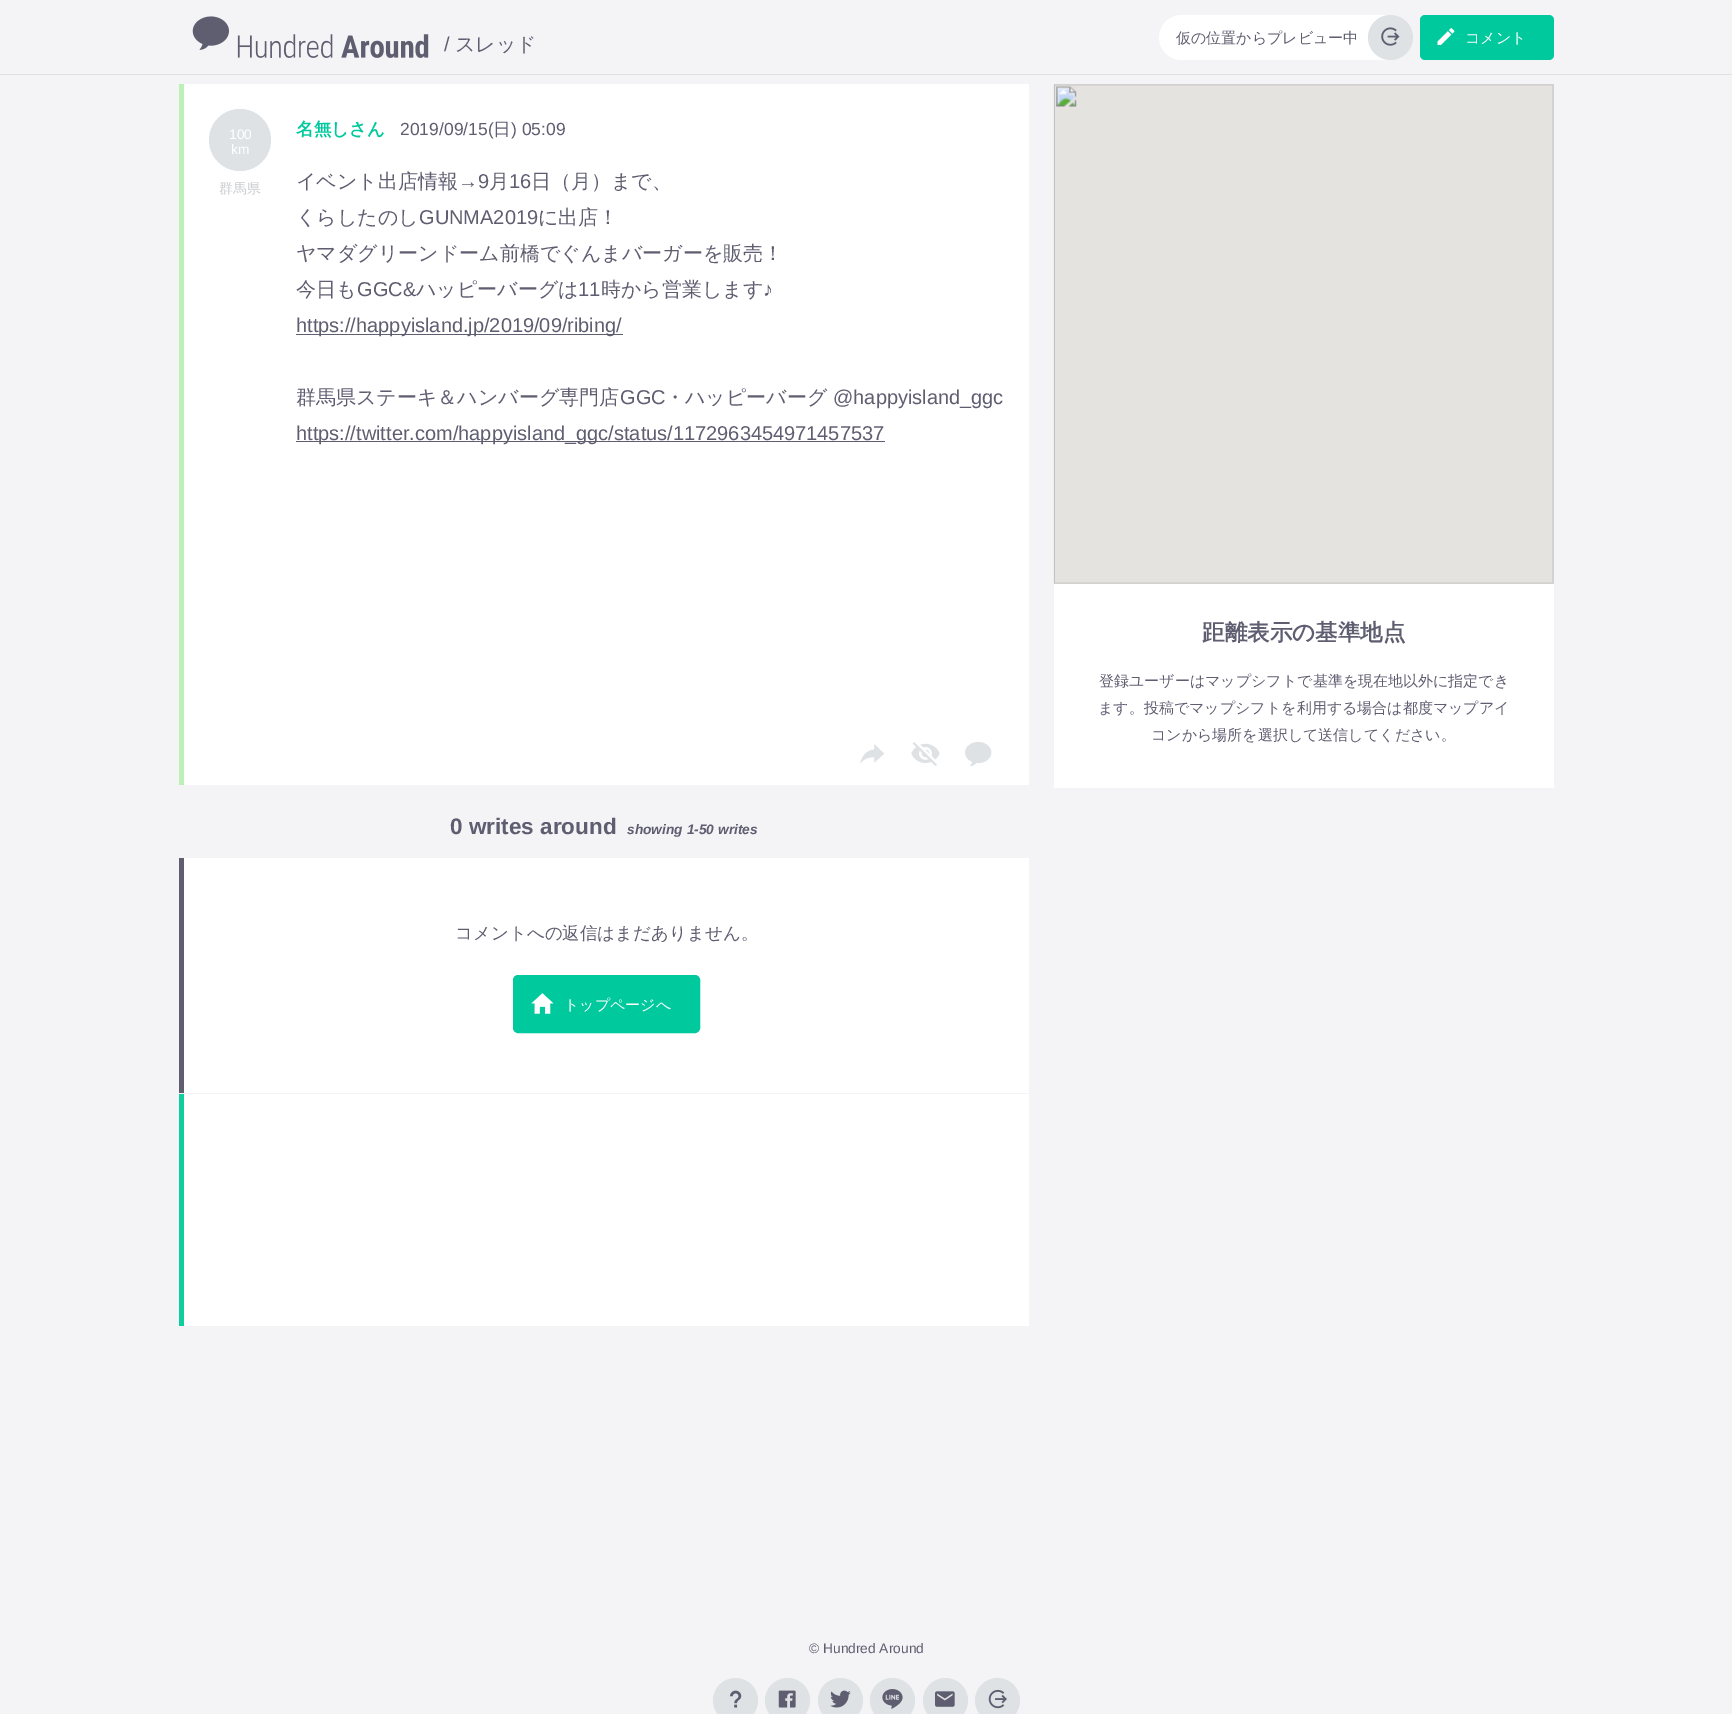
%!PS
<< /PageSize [1732 1714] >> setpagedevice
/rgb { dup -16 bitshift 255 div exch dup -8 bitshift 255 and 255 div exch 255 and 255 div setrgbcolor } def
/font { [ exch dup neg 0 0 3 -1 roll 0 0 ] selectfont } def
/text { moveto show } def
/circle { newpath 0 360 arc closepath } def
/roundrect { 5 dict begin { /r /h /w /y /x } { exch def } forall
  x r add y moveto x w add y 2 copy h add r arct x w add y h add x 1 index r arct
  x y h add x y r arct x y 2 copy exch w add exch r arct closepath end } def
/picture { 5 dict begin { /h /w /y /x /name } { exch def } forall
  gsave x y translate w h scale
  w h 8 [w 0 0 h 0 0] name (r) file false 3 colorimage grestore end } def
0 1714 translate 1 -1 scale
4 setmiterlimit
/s1 { /LiberationSans-Regular 20 font 16#5F5D70 rgb } def
/s2 { /WenQuanYiZenHei-Medium 20 font 16#5F5D70 rgb } def
/s3 { /WenQuanYiZenHei-Medium 15 font 16#5F5D70 rgb } def
/s4 { /WenQuanYiZenHei-Medium 15 font 16#FFFFFF rgb } def
/s5 { /LiberationSans-Regular 13.75 font 16#FFFFFF rgb } def
/s6 { /WenQuanYiZenHei-Bold 17.5 font 16#00CA9D rgb } def
/s7 { /LiberationSans-Regular 17.5 font 16#5F5D70 rgb } def
/s8 { /WenQuanYiZenHei-Medium 17.5 font 16#5F5D70 rgb } def
/s9 { /WenQuanYiZenHei-Medium 13.75 font 16#C9CDCF rgb } def
/s10 { /LiberationSans-Bold 22.5 font 16#5F5D70 rgb } def
/s11 { /LiberationSans-BoldItalic 13.75 font 16#5F5D70 rgb } def
/s12 { /WenQuanYiZenHei-Bold 22.5 font 16#5F5D70 rgb } def
/s13 { /LiberationSans-Regular 13.75 font 16#5F5D70 rgb } def
16#F4F4F6 rgb
0 0 1732 1714 rectfill
16#DFE2E5 rgb
0 74 1732 1 rectfill
(pic1.raw) 192 16 237 42 picture
s1
(/) 444 51 text
s2
(スレッド) 455 51 text
16#FFFFFF rgb
1159 15 254 45 22.5 roundrect fill
s3
(仮の位置からプレビュー中) 1176 43 text
16#DFE2E5 rgb
1390.5 37.5 22.5 circle fill
(pic2.raw) 1381 27 19 19 picture
16#00CA9D rgb
1420 15 134 45 5 roundrect fill
(pic3.raw) 1437 28 18 17 picture
s4
(コメント) 1465 43 text
184 84 845 701 rectfill
16#BBF1B4 rgb
179 84 5 701 rectfill
16#DFE2E5 rgb
240 140 31 circle fill
s5
(100) 229 139 text
(km) 231 154 text
s6
(名無しさん) 296 135 text
s7
(2019/09/15\() 400 135 text
s8
(日) 493 135 text
s7
(\) 05:09) 511 135 text
s9
(群馬県) 219 193 text
s2
(イベント出店情報) 296 188 text
s1
(→9) 458 188 text
s2
(月) 489 188 text
s1
(16) 509 188 text
s2
(日（月）まで、) 531 188 text
(くらしたのし) 296 224 text
s1
(GUNMA2019) 419 224 text
s2
(に出店！) 538 224 text
(ヤマダグリーンドーム前橋でぐんまバーガーを販売！) 296 260 text
(今日も) 296 296 text
s1
(GGC&) 357 296 text
s2
(ハッピーバーグは) 416 296 text
s1
(11) 578 296 text
s2
(時から営業します) 601 296 text
s1
(♪) 763 296 text
296 334 327 1 rectfill
(https://happyisland.jp/2019/09/ribing/) 296 332 text
s2
(群馬県ステーキ＆ハンバーグ専門店) 296 404 text
s1
(GGC) 620 404 text
s2
(・ハッピーバーグ) 665 404 text
s1
(@happyisland_ggc) 833 404 text
296 441 589 1 rectfill
(https://twitter.com/happyisland_ggc/status/1172963454971457537) 296 440 text
(pic4.raw) 860 744 25 20 picture
(pic5.raw) 911 742 29 24 picture
(pic6.raw) 965 742 27 25 picture
s10
(0 writes around) 450 834 text
s11
(showing 1-50 writes) 627 834 text
16#FFFFFF rgb
184 858 845 235 rectfill
16#5F5D70 rgb
179 858 5 235 rectfill
s8
(コメントへの返信はまだありません。) 455 939 text
16#00CA9D rgb
513.5 975.5 186 57 4.5 roundrect gsave fill grestore
stroke
(pic7.raw) 531 993 23 21 picture
s4
(トップページへ) 564 1010 text
184 1094 845 232 rectfill
16#10CD9E rgb
179 1094 5 232 rectfill
(pic8.raw) 1053 84 501 500 picture
16#FFFFFF rgb
1054 584 500 204 rectfill
s12
(距離表示の基準地点) 1202 640 text
s3
(登録ユーザーはマップシフトで基準を現在地以外に指定でき) 1099 686 text
(ます。投稿でマップシフトを利用する場合は都度マップアイ) 1098 713 text
(コンから場所を選択して送信してください。) 1151 740 text
s13
(© Hundred Around) 809 1653 text
16#DFE2E5 rgb
735.5 1700.5 22.5 circle fill
(pic9.raw) 730 1690 12 18 picture
787.5 1700.5 22.5 circle fill
(pic10.raw) 778 1690 18 18 picture
840.5 1700.5 22.5 circle fill
(pic11.raw) 830 1690 21 18 picture
892.5 1700.5 22.5 circle fill
(pic12.raw) 882 1689 21 20 picture
945.5 1700.5 22.5 circle fill
(pic13.raw) 935 1691 20 16 picture
997.5 1700.5 22.5 circle fill
(pic14.raw) 988 1689 19 20 picture
showpage
